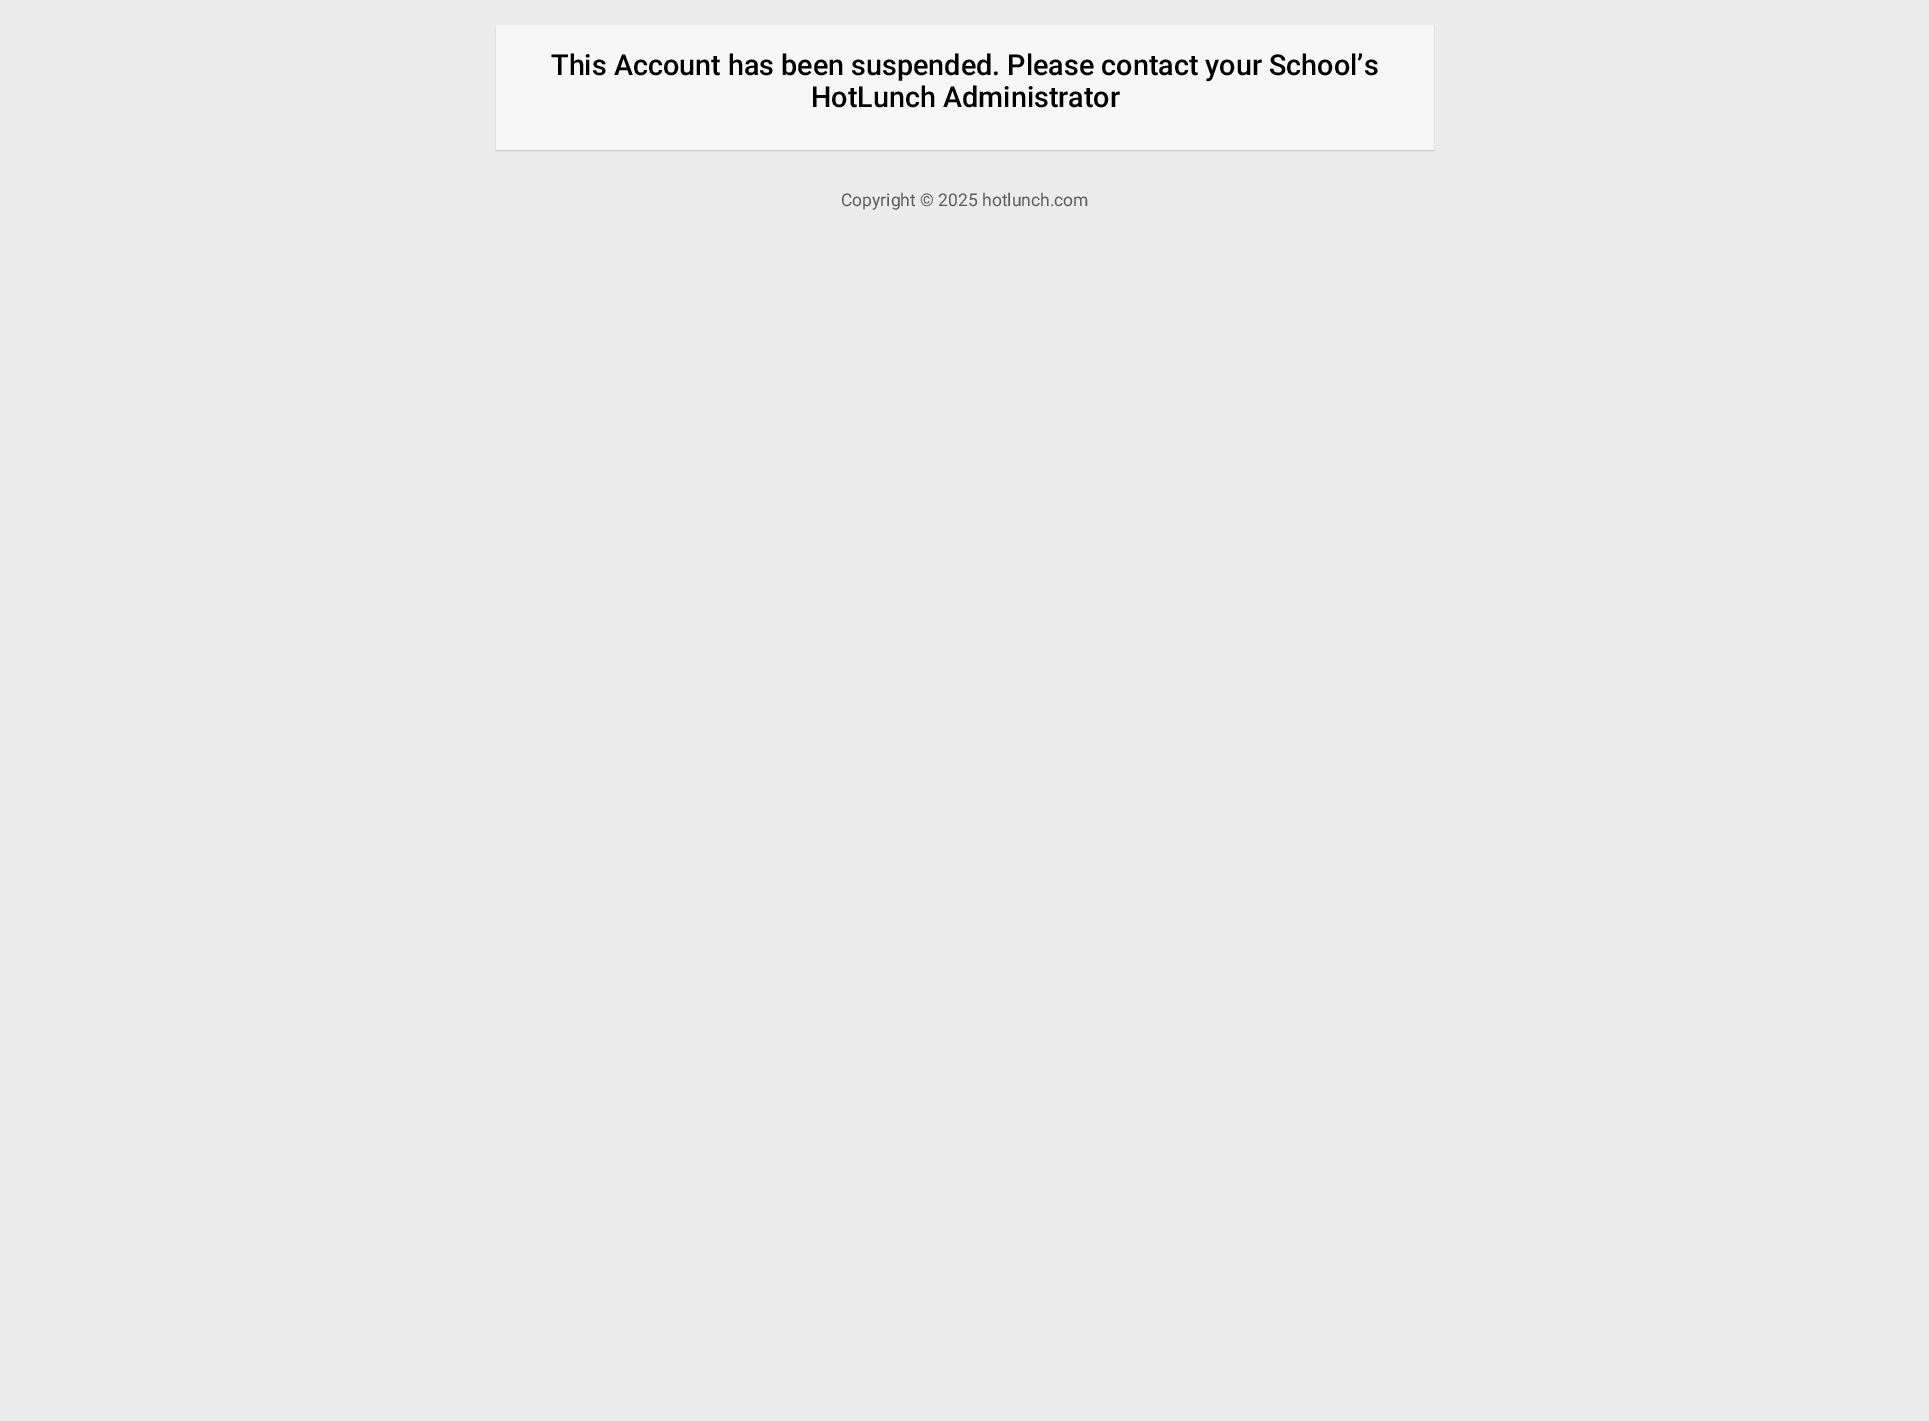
%!PS
<< /PageSize [1929 1421] /PageUsesTransparency true >> setpagedevice
/rgb { dup -16 bitshift 255 div exch dup -8 bitshift 255 and 255 div exch 255 and 255 div setrgbcolor } def
/font { [ exch dup neg 0 0 3 -1 roll 0 0 ] selectfont } def
/text { moveto show } def
/alpha { dup .setfillconstantalpha .setstrokeconstantalpha } def
/roundrect { 5 dict begin { /r /h /w /y /x } { exch def } forall
  x r add y moveto x w add y 2 copy h add r arct x w add y h add x 1 index r arct
  x y h add x y r arct x y 2 copy exch w add exch r arct closepath end } def
/shadow { 12 dict begin { /a /b /q /h /w /y /x } { exch def } forall gsave /was 0 def
  9 -2 -9 { dup b mul 4 div /e exch def 1 sub .425 mul 2.718 exch exp 1 add a .99 .min exch div /now exch def
    1 1 now sub 1 was sub div sub alpha /was now def
    w h .min e 2 mul add 0 gt { x e sub y e sub w e 2 mul add h e 2 mul add
      q e add b .6 mul add w h .min 2 div e add .min 0 .max roundrect fill } if } for grestore end } def
0 .pushpdf14devicefilter
0 1421 translate 1 -1 scale
4 setmiterlimit
/s1 { /Roboto-Medium 28.75 font 16#000000 rgb } def
/s2 { /Roboto-Regular 17.5 font 16#5E5E5E rgb } def
16#EDECEC rgb
0 0 1929 1421 rectfill
16#000000 rgb
496 26 938 125 0 0.5 0.15 shadow
16#F7F7F7 rgb
496 25 938 125 rectfill
s1
(This Account has been suspended. Please contact your School’s) 551 75 text
(HotLunch Administrator) 811 107 text
s2
(Copyright © 2025 hotlunch.com) 841 206 text
.poppdf14devicefilter showpage
